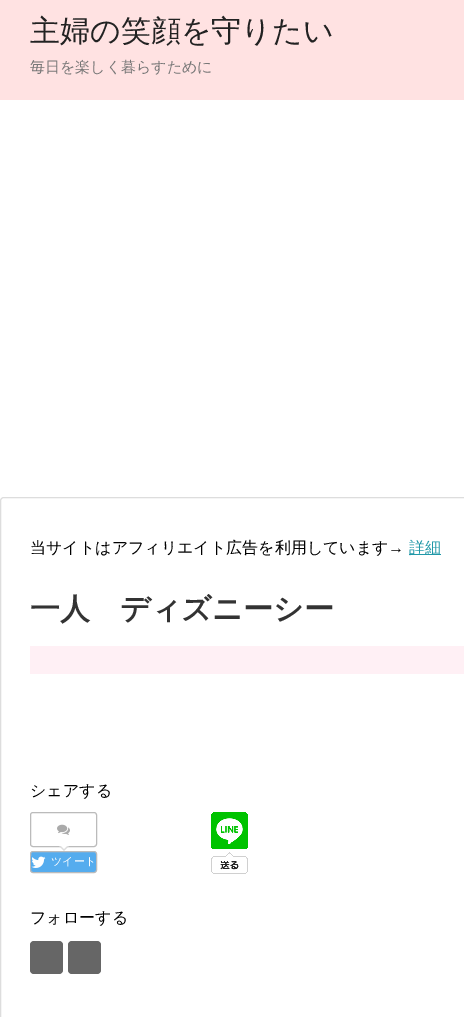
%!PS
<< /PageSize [464 1017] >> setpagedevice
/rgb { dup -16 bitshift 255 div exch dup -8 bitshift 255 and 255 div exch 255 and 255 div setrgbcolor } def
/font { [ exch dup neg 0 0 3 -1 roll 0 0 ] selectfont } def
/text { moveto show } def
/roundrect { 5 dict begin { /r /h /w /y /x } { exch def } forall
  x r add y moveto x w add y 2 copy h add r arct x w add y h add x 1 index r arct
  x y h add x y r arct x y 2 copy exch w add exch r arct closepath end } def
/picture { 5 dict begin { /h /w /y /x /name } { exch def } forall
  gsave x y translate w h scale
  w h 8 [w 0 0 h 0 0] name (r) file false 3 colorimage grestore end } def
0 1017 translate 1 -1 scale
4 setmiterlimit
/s1 { /WenQuanYiZenHei-Medium 30 font 16#222222 rgb } def
/s2 { /WenQuanYiZenHei-Medium 15 font 16#777777 rgb } def
/s3 { /WenQuanYiZenHei-Medium 16 font 16#000000 rgb } def
/s4 { /LiberationSans-Regular 16 font 16#000000 rgb } def
/s5 { /WenQuanYiZenHei-Medium 16 font 16#2098A8 rgb } def
/s6 { /WenQuanYiZenHei-Bold 30 font 16#333333 rgb } def
/s7 { /WenQuanYiZenHei-Medium 11 font 16#FFFFFF rgb } def
16#FFFFFF rgb
0 0 464 1017 rectfill
16#FFE2E2 rgb
0 0 464 100 rectfill
s1
(主婦の笑顔を守りたい) 30 41 text
s2
(毎日を楽しく暮らすために) 30 72 text
16#DDDDDD rgb
0.5 497.5 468 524 3.5 roundrect stroke
s3
(当サイトはアフィリエイト広告を利用しています) 30 553 text
s4
(→) 388 553 text
16#2098A8 rgb
409 554 32 1 rectfill
s5
(詳細) 409 553 text
s6
(一人　ディズニーシー) 30 619 text
16#FFF0F5 rgb
30 646 434 28 rectfill
s3
(シェアする) 30 796 text
16#BBBBBB rgb
30.5 812.5 66 34 2.5 roundrect stroke
(pic1.raw) 57 824 13 11 picture
16#DDDDDD rgb
59 846 moveto 69 846 lineto 64 851 lineto closepath fill
16#FFFFFF rgb
61 846 moveto 67 846 lineto 64 849 lineto closepath fill
16#55ACEE rgb
30.5 851.5 66 21 2.5 roundrect gsave fill grestore
16#BBBBBB rgb
stroke
(pic2.raw) 31 856 15 12 picture
s7
(ツイート) 51 865 text
(pic3.raw) 211 812 37 62 picture
s3
(フォローする) 30 923 text
16#666666 rgb
30 941 33 33 4 roundrect fill
68 941 33 33 4 roundrect fill
showpage
